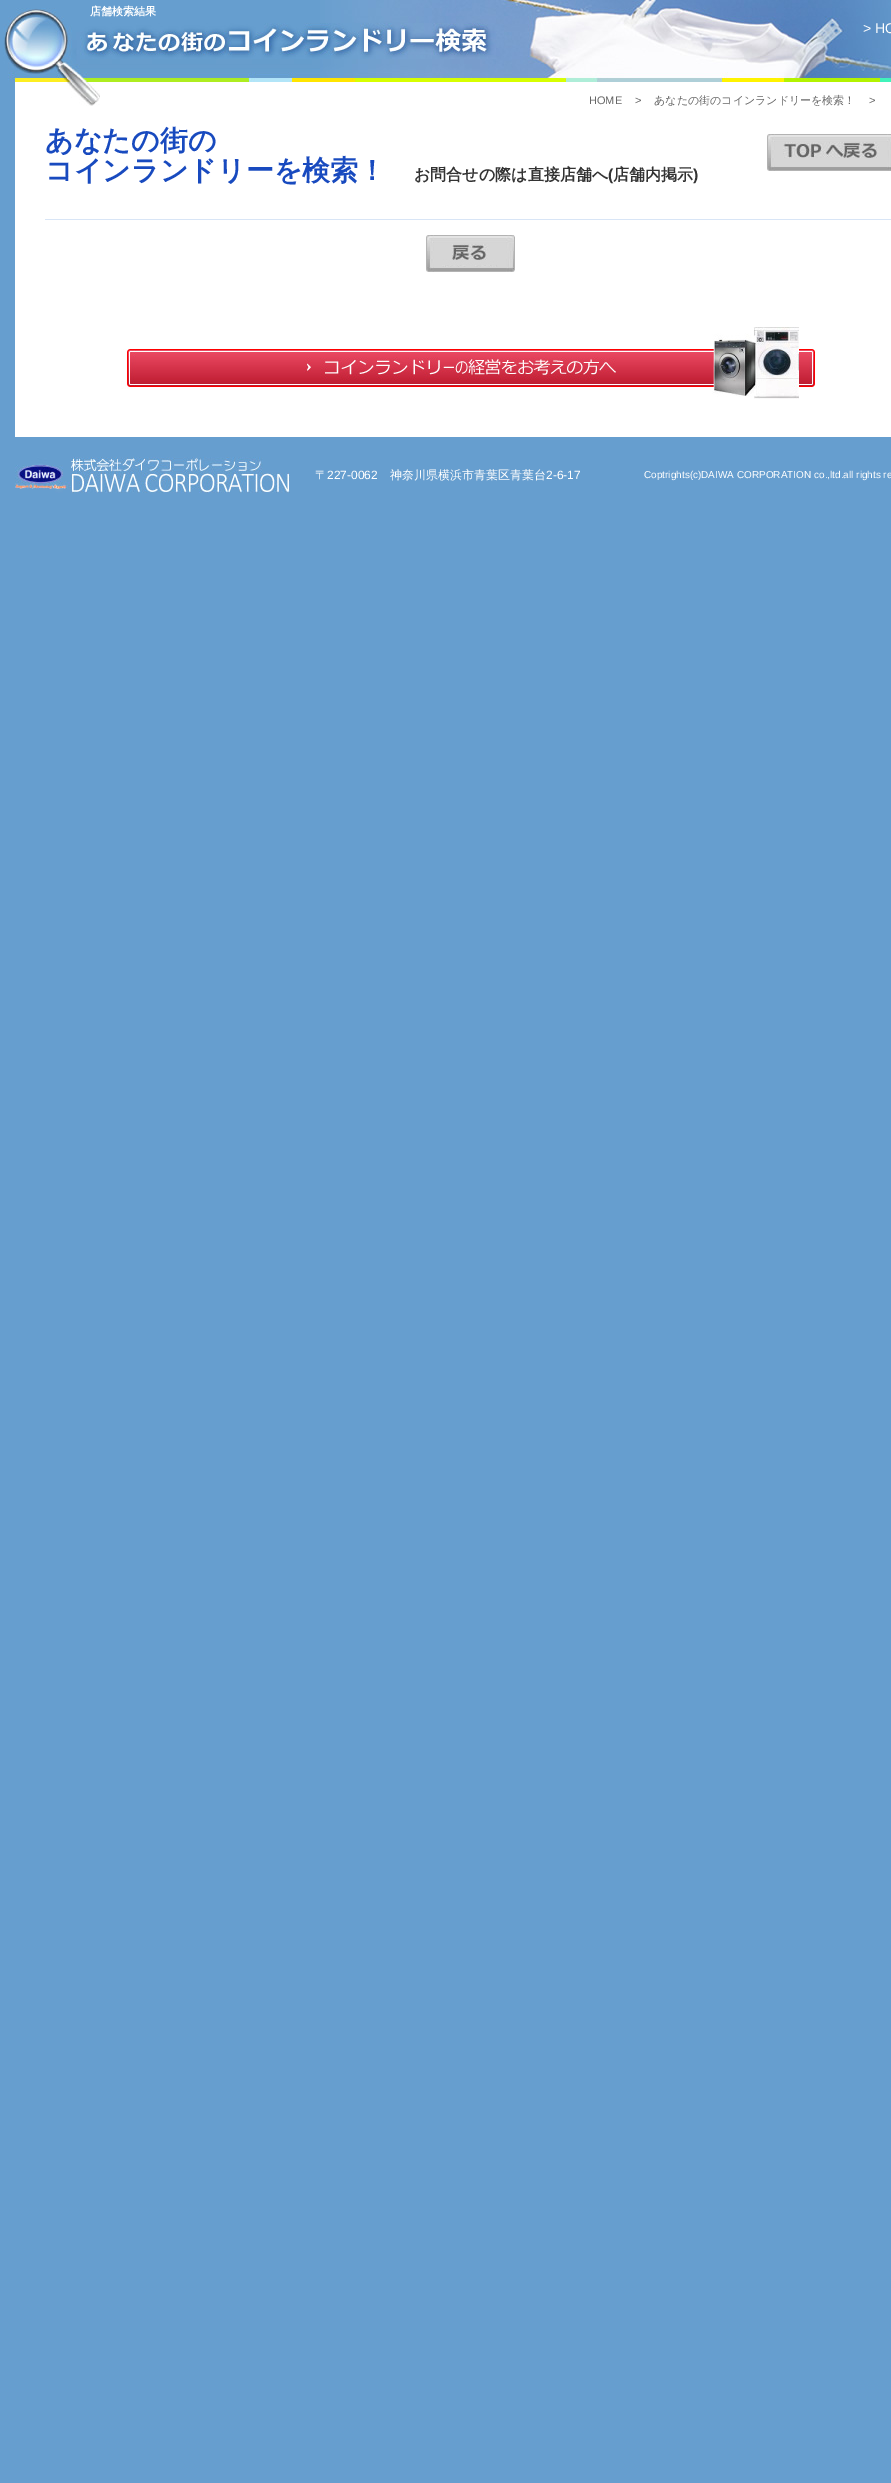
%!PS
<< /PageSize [891 2483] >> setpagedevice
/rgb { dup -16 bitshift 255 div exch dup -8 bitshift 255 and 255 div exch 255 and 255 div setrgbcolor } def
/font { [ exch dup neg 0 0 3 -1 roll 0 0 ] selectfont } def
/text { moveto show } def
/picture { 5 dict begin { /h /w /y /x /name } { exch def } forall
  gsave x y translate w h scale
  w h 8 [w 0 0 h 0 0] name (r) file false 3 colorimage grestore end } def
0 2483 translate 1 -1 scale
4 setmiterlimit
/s1 { /WenQuanYiZenHei-Bold 11 font 16#FFFFFF rgb } def
/s2 { /LiberationSans-Regular 14 font 16#FFFFFF rgb } def
/s3 { /LiberationSans-Regular 11 font 16#666666 rgb } def
/s4 { /WenQuanYiZenHei-Medium 11 font 16#666666 rgb } def
/s5 { /WenQuanYiZenHei-Bold 28 font 16#184ABF rgb } def
/s6 { /WenQuanYiZenHei-Bold 16 font 16#333333 rgb } def
/s7 { /LiberationSans-Bold 16 font 16#333333 rgb } def
/s8 { /WenQuanYiZenHei-Medium 12 font 16#FFFFFF rgb } def
/s9 { /LiberationSans-Regular 12 font 16#FFFFFF rgb } def
/s10 { /LiberationSans-Regular 10 font 16#FFFFFF rgb } def
16#669ECF rgb
0 0 891 2483 rectfill
(pic1.raw) 3 0 888 82 picture
s1
(店舗検索結果) 90 15 text
(pic2.raw) 80 23 416 36 picture
s2
(> HO) 863 33 text
15 82 876 355 rectfill
(pic3.raw) 67 82 33 24 picture
s3
(HOME) 589 104 text
(>) 635 104 text
s4
(あなたの街のコインランドリーを検索！) 654 104 text
s3
(>) 869 104 text
s5
(あなたの街の) 45 150 text
(コインランドリーを検索！) 45 180 text
s6
(お問合せの際は直接店舗へ) 414 180 text
s7
(\() 608 180 text
s6
(店舗内掲示) 613 180 text
s7
(\)) 693 180 text
(pic4.raw) 767 134 124 37 picture
16#D8E5F6 rgb
45 219 846 1 rectfill
(pic5.raw) 426 235 89 37 picture
(pic6.raw) 121 327 695 72 picture
(pic7.raw) 15 457 275 36 picture
s8
(〒) 315 479 text
s9
(227-0062) 327 479 text
s8
(神奈川県横浜市青葉区青葉台) 390 479 text
s9
(2-6-17) 546 479 text
s10
(Coptrights\(c\)DAIWA CORPORATION co.,ltd.all rights re) 644 478 text
showpage
